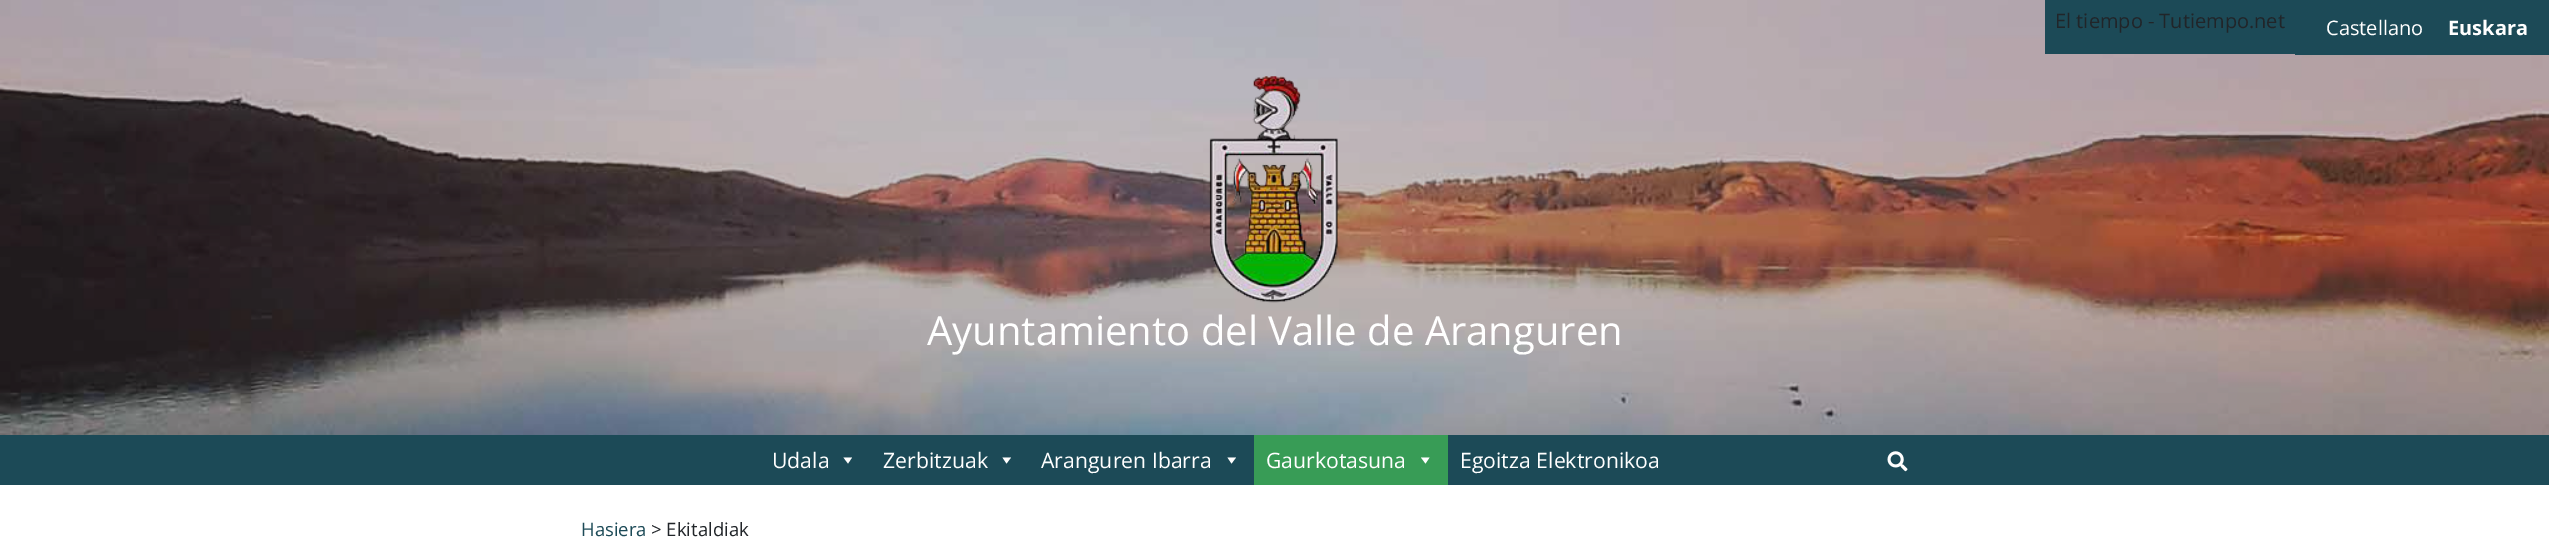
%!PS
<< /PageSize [2549 553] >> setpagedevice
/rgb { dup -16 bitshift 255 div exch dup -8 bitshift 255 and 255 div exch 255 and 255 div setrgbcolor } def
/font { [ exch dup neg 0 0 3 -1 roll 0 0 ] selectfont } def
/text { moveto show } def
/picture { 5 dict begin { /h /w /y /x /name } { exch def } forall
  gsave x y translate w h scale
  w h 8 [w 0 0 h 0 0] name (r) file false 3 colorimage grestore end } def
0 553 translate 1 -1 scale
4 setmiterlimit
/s1 { /OpenSans-Regular 20 font 16#212529 rgb } def
/s2 { /OpenSans-Regular 20 font 16#FFFFFF rgb } def
/s3 { /OpenSans-Bold 20 font 16#FFFFFF rgb } def
/s4 { /OpenSans-Regular 40 font 16#FFFFFF rgb } def
/s5 { /OpenSans-Regular 21.25 font 16#FFFFFF rgb } def
/s6 { /OpenSans-Regular 18.5 font 16#1C4A57 rgb } def
/s7 { /OpenSans-Regular 18.5 font 16#212529 rgb } def
16#FFFFFF rgb
0 0 2549 553 rectfill
(pic1.raw) 0 0 2549 435 picture
16#1C4A57 rgb
2045 0 250 54 rectfill
s1
(El tiempo - Tutiempo.net) 2055 28 text
16#1C4A57 rgb
2295 0 254 55 rectfill
s2
(Castellano) 2326 35 text
s3
(Euskara) 2448 35 text
(pic2.raw) 1209 76 129 227 picture
s4
(Ayuntamiento del Valle de Aranguren) 927 345 text
16#1C4A57 rgb
0 435 2549 50 rectfill
s5
(Udala) 772 468 text
852 457.5 moveto 848 463.5 lineto 843.5 457.5 lineto closepath fill
(Zerbitzuak) 883 468 text
1011 457.5 moveto 1006.5 463.5 lineto 1002.5 457.5 lineto closepath fill
(Aranguren Ibarra) 1041 468 text
1236 457.5 moveto 1231.5 463.5 lineto 1227.5 457.5 lineto closepath fill
16#389C56 rgb
1254 435 194 50 rectfill
s5
(Gaurkotasuna) 1266 468 text
1429.5 457.5 moveto 1425.5 463.5 lineto 1421 457.5 lineto closepath fill
(Egoitza Elektronikoa) 1460 468 text
(pic3.raw) 1887 451 21 21 picture
s6
(Hasiera) 581 536 text
s7
(> Ekitaldiak) 651 536 text
showpage
